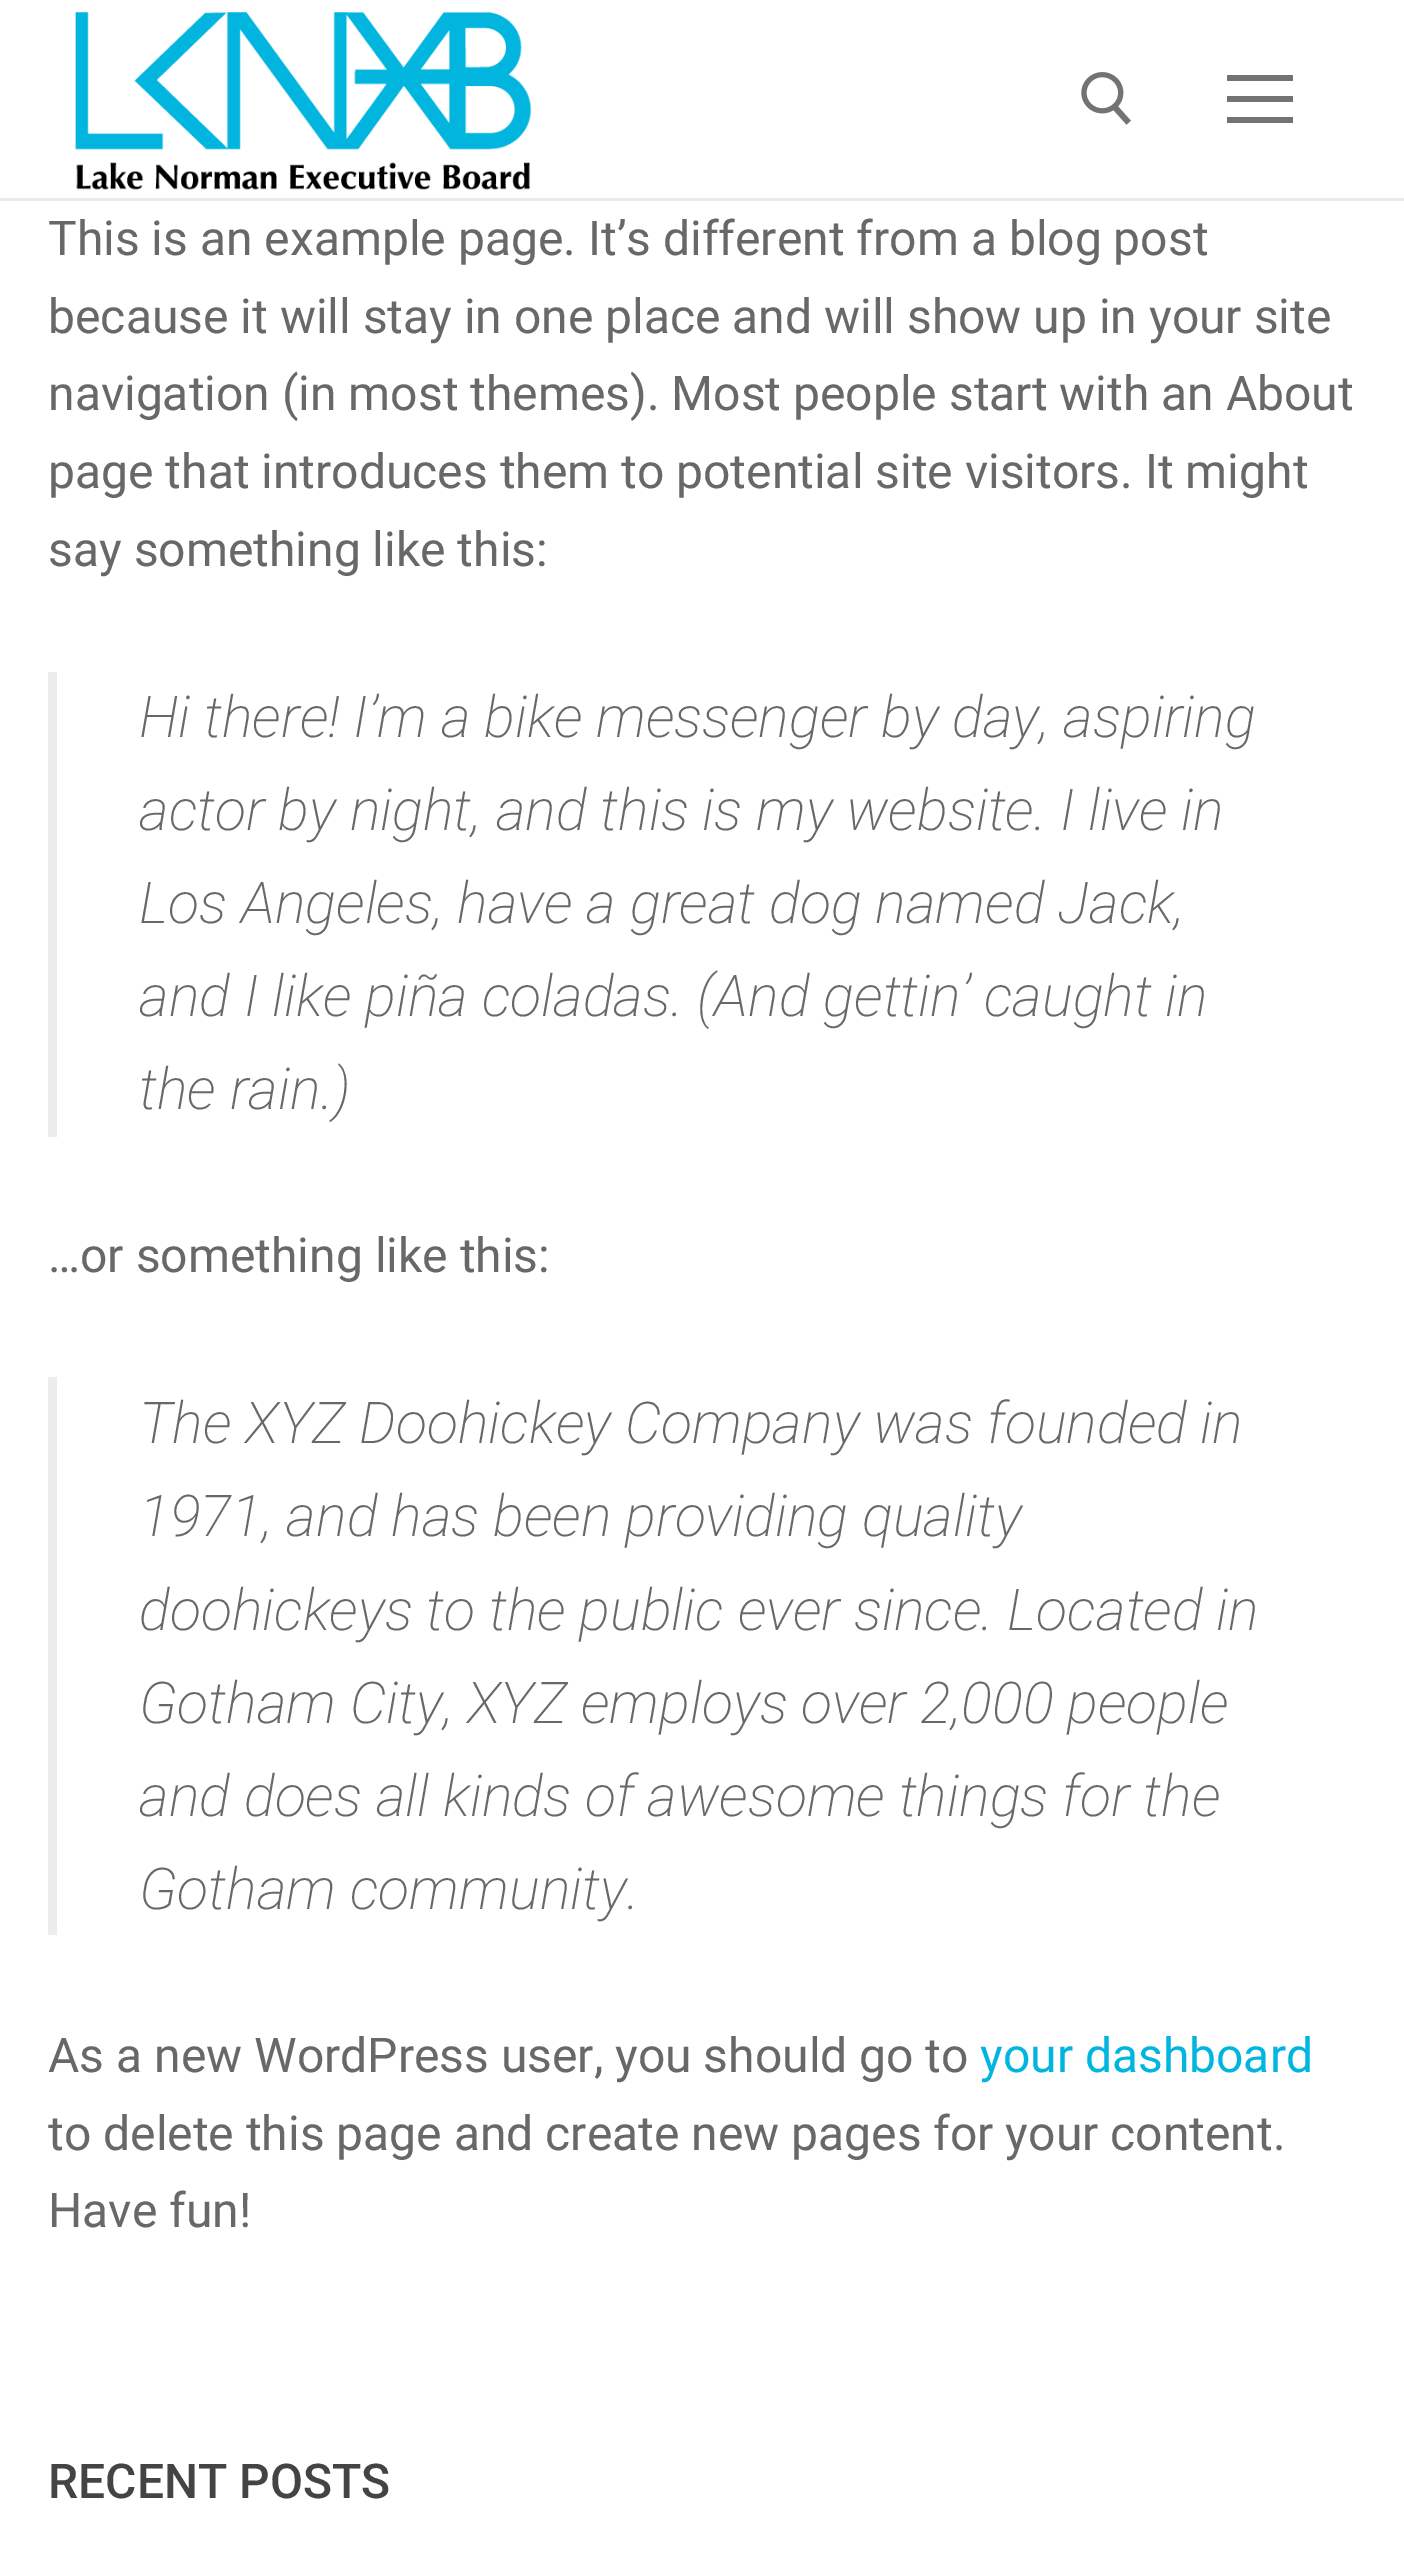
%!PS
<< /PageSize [1404 2549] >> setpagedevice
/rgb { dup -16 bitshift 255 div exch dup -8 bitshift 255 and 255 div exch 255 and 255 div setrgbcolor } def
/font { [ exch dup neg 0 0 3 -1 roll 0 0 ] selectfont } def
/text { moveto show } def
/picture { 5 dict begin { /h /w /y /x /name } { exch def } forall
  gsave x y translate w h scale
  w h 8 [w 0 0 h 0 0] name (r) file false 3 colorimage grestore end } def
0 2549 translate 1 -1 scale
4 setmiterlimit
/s1 { /Roboto-Regular 48 font 16#686868 rgb } def
/s2 { /Roboto-ExtraLightItalic 57.6 font 16#686868 rgb } def
/s3 { /Roboto-Regular 48 font 16#00B5E0 rgb } def
/s4 { /Roboto-Medium 48 font 16#444444 rgb } def
16#FFFFFF rgb
0 0 1404 2549 rectfill
16#EAEAEA rgb
0 198 1404 3 rectfill
(pic1.raw) 75 12 457 178 picture
(pic2.raw) 1081 72 50 53 picture
16#737373 rgb
1227 96 66 6 rectfill
1227 75 66 6 rectfill
1227 117 66 6 rectfill
s1
(This is an example page. It’s different from a blog post) 48 255 text
(because it will stay in one place and will show up in your site) 48 333 text
(navigation \(in most themes\). Most people start with an About) 48 410 text
(page that introduces them to potential site visitors. It might) 48 488 text
(say something like this:) 48 566 text
16#EAECEE rgb
48 672 9 465 rectfill
s2
(Hi there! I’m a bike messenger by day, aspiring) 139 737 text
(actor by night, and this is my website. I live in) 139 830 text
(Los Angeles, have a great dog named Jack,) 139 923 text
(and I like piña coladas. \(And gettin’ caught in) 139 1016 text
(the rain.\)) 139 1109 text
s1
(…or something like this:) 48 1272 text
16#EAECEE rgb
48 1377 9 558 rectfill
s2
(The XYZ Doohickey Company was founded in) 139 1443 text
(1971, and has been providing quality) 139 1536 text
(doohickeys to the public ever since. Located in) 139 1630 text
(Gotham City, XYZ employs over 2,000 people) 139 1723 text
(and does all kinds of awesome things for the) 139 1816 text
(Gotham community.) 139 1909 text
s1
(As a new WordPress user, you should go to) 48 2072 text
s3
(your dashboard) 980 2072 text
s1
(to delete this page and create new pages for your content.) 48 2150 text
(Have fun!) 48 2227 text
s4
(RECENT POSTS) 48 2498 text
showpage
